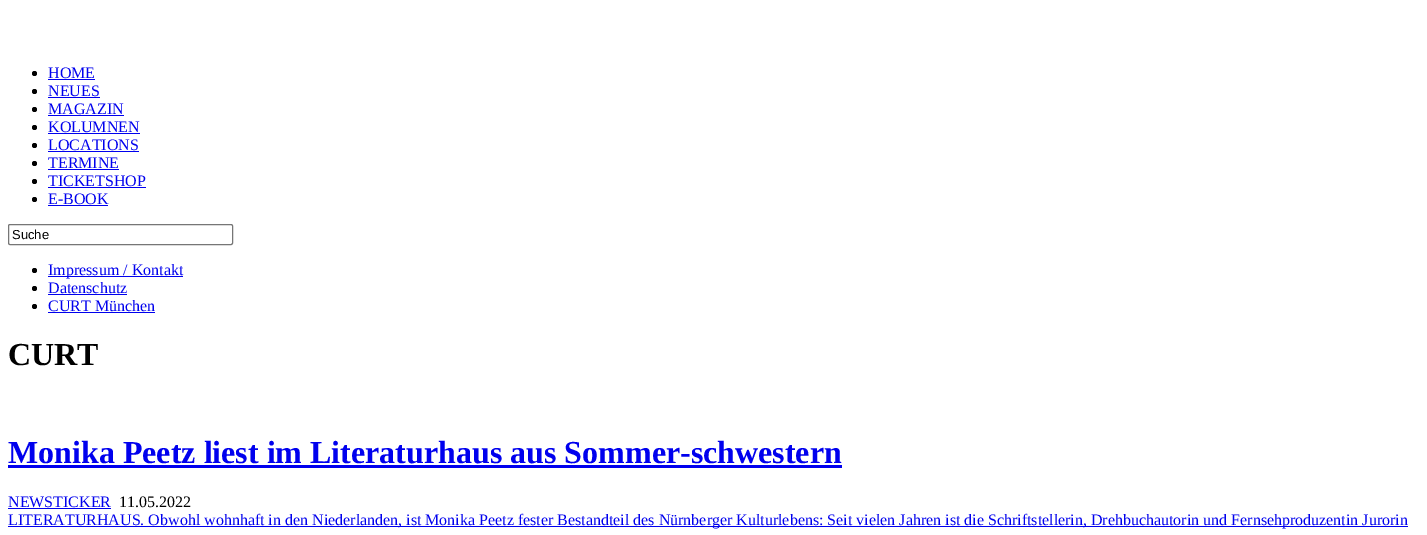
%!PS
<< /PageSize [1427 535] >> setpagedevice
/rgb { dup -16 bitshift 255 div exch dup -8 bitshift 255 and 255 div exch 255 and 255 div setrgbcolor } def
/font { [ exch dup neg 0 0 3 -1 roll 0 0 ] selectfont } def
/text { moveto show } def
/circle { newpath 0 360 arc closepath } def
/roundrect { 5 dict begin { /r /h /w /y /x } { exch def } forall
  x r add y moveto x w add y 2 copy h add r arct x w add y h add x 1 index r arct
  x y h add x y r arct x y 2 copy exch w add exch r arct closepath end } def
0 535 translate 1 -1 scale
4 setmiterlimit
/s1 { /LiberationSerif-Regular 16 font 16#0000EE rgb } def
/s2 { /LiberationSans-Regular 13 font 16#000000 rgb } def
/s3 { /LiberationSerif-Bold 32 font 16#000000 rgb } def
/s4 { /LiberationSerif-Bold 32 font 16#0000EE rgb } def
/s5 { /LiberationSerif-Regular 16 font 16#000000 rgb } def
16#FFFFFF rgb
0 0 1427 535 rectfill
16#000000 rgb
34.5 73.5 2.5 circle fill
s1
(HOME) 48 78 text
48 79 47 1 rectfill
16#000000 rgb
34.5 91.5 2.5 circle fill
s1
(NEUES) 48 96 text
48 97 52 1 rectfill
16#000000 rgb
34.5 109.5 2.5 circle fill
s1
(MAGAZIN) 48 114 text
48 115 76 1 rectfill
16#000000 rgb
34.5 127.5 2.5 circle fill
s1
(KOLUMNEN) 48 132 text
48 133 92 1 rectfill
16#000000 rgb
34.5 145.5 2.5 circle fill
s1
(LOCATIONS) 48 150 text
48 151 91 1 rectfill
16#000000 rgb
34.5 163.5 2.5 circle fill
s1
(TERMINE) 48 168 text
48 169 71 1 rectfill
16#000000 rgb
34.5 181.5 2.5 circle fill
s1
(TICKETSHOP) 48 186 text
48 187 98 1 rectfill
16#000000 rgb
34.5 199.5 2.5 circle fill
s1
(E-BOOK) 48 204 text
48 205 60 1 rectfill
16#767676 rgb
8.5 224.5 224 20 1.5 roundrect stroke
s2
(Suche) 12 239 text
34.5 270.5 2.5 circle fill
16#0000EE rgb
48 276 135 1 rectfill
s1
(Impressum / Kontakt) 48 275 text
16#000000 rgb
34.5 288.5 2.5 circle fill
s1
(Datenschutz) 48 293 text
48 294 79 1 rectfill
16#000000 rgb
34.5 306.5 2.5 circle fill
s1
(CURT München) 48 311 text
48 312 107 1 rectfill
s3
(CURT) 8 365 text
s4
(Monika Peetz liest im Literaturhaus aus Sommer-schwestern) 8 463 text
8 465 834 3 rectfill
s1
(NEWSTICKER) 8 507 text
8 508 103 1 rectfill
s5
(11.05.2022) 119 507 text
16#0000EE rgb
8 526 1400 1 rectfill
(LITERATURHAUS. Obwohl wohnhaft in den Niederlanden, ist Monika Peetz fester Bestandteil des Nürnberger Kulturlebens: Seit vielen Jahren ist die Schriftstellerin, Drehbuchautorin und Fernsehproduzentin Jurorin) 8 525 text
showpage
